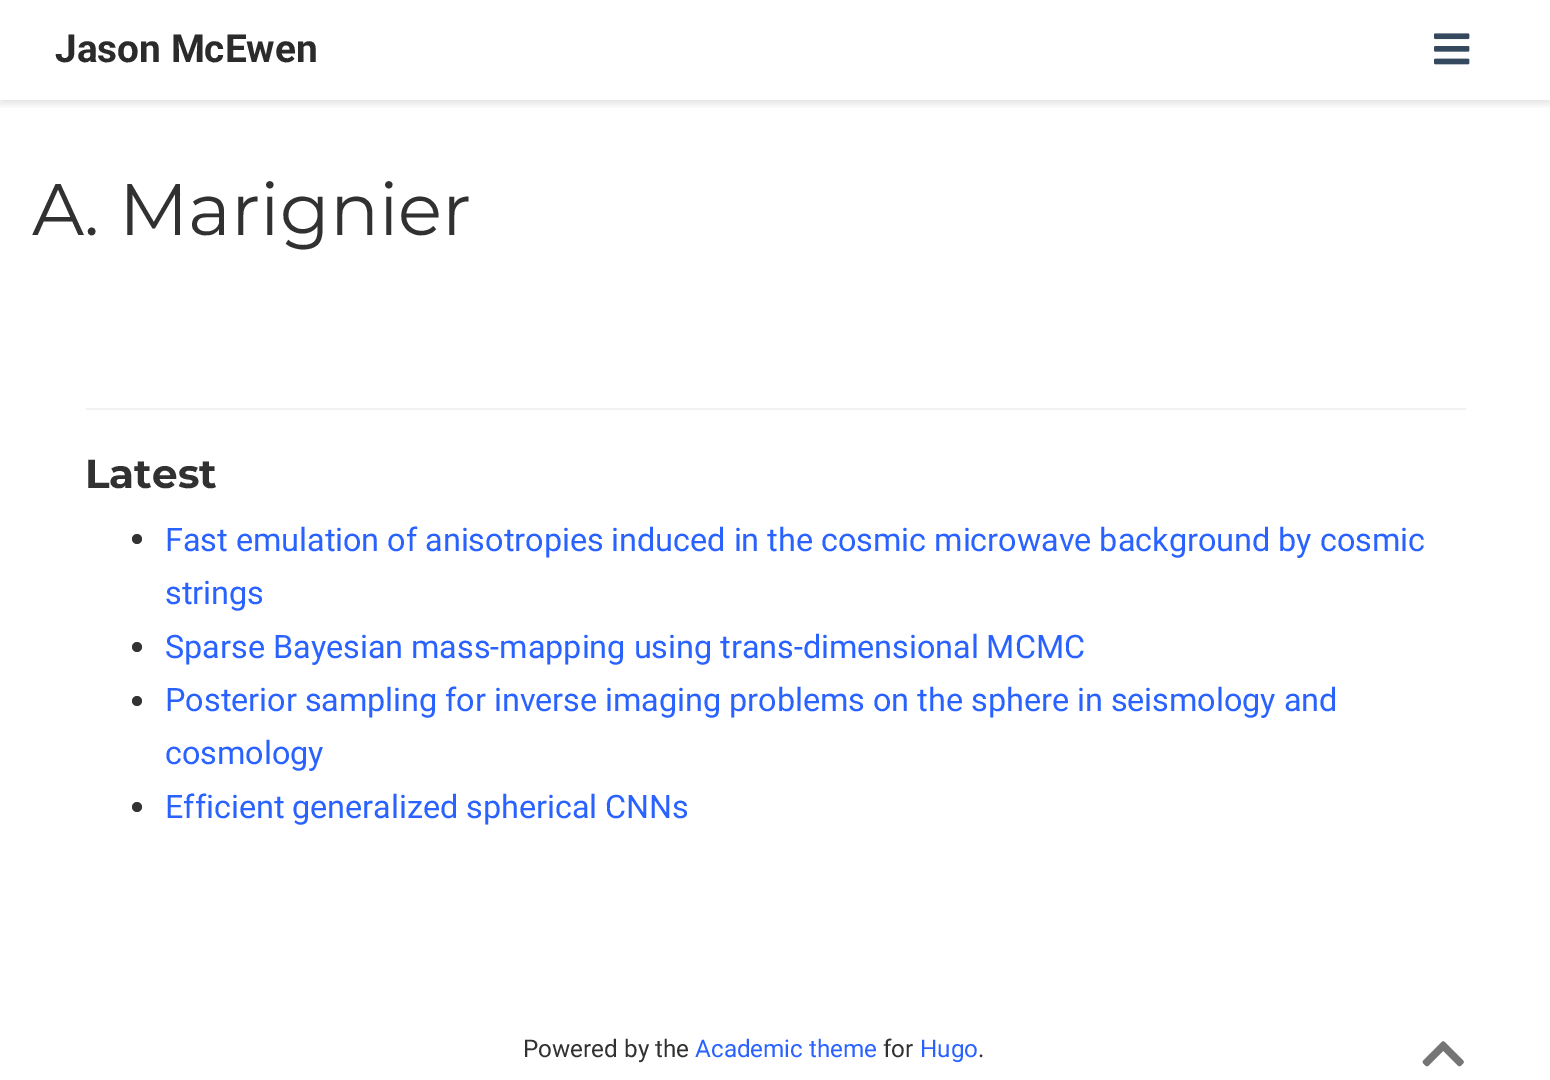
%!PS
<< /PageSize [1550 1080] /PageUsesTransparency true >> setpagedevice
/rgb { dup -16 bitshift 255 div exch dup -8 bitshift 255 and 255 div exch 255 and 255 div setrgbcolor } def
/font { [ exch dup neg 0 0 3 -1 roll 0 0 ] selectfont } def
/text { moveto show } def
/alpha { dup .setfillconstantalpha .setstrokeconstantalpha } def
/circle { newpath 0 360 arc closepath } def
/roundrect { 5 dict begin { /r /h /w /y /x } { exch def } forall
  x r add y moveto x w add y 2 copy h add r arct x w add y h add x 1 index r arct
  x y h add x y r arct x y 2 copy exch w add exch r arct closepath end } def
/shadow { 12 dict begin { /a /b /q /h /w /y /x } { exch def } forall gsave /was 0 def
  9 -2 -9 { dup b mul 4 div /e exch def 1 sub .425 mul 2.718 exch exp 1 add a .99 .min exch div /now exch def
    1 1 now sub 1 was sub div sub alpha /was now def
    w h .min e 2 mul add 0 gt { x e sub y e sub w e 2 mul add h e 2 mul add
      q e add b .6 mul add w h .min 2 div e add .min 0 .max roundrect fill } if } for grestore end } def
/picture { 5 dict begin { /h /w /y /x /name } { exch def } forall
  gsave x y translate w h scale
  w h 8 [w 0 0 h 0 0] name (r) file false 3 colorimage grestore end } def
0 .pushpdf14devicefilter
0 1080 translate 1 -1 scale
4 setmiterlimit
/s1 { /Roboto-Bold 38.75 font 16#2B2B2B rgb } def
/s2 { /Montserrat-Regular 72.75 font 16#313131 rgb } def
/s3 { /Montserrat-Bold 40.5 font 16#313131 rgb } def
/s4 { /Roboto-Regular 32.35 font 16#2962FF rgb } def
/s5 { /Roboto-Regular 24.25 font 16#313131 rgb } def
/s6 { /Roboto-Regular 24.25 font 16#2962FF rgb } def
16#FFFFFF rgb
0 0 1550 1080 rectfill
gsave
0 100 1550 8 rectclip
16#000000 rgb
0 4 1550 100 0 4 0.11 shadow
grestore
s1
(Jason McEwen) 55 62 text
(pic1.raw) 1434 33 36 32 picture
s2
(A. Marignier) 32 235 text
16#F2F2F2 rgb
86 408 1380 2 rectfill
s3
(Latest) 85 488 text
16#333333 rgb
137 539 5 circle fill
s4
(Fast emulation of anisotropies induced in the cosmic microwave background by cosmic) 165 551 text
(strings) 165 604 text
16#333333 rgb
137 647 5 circle fill
s4
(Sparse Bayesian mass-mapping using trans-dimensional MCMC) 165 658 text
16#333333 rgb
137 701 5 circle fill
s4
(Posterior sampling for inverse imaging problems on the sphere in seismology and) 165 711 text
(cosmology) 165 764 text
16#333333 rgb
137 807 5 circle fill
s4
(Efficient generalized spherical CNNs) 165 818 text
s5
(Powered by the) 523 1057 text
s6
(Academic theme) 695 1057 text
s5
(for) 883 1057 text
s6
(Hugo) 920 1057 text
s5
(.) 978 1057 text
(pic2.raw) 1422 1041 42 26 picture
.poppdf14devicefilter showpage
